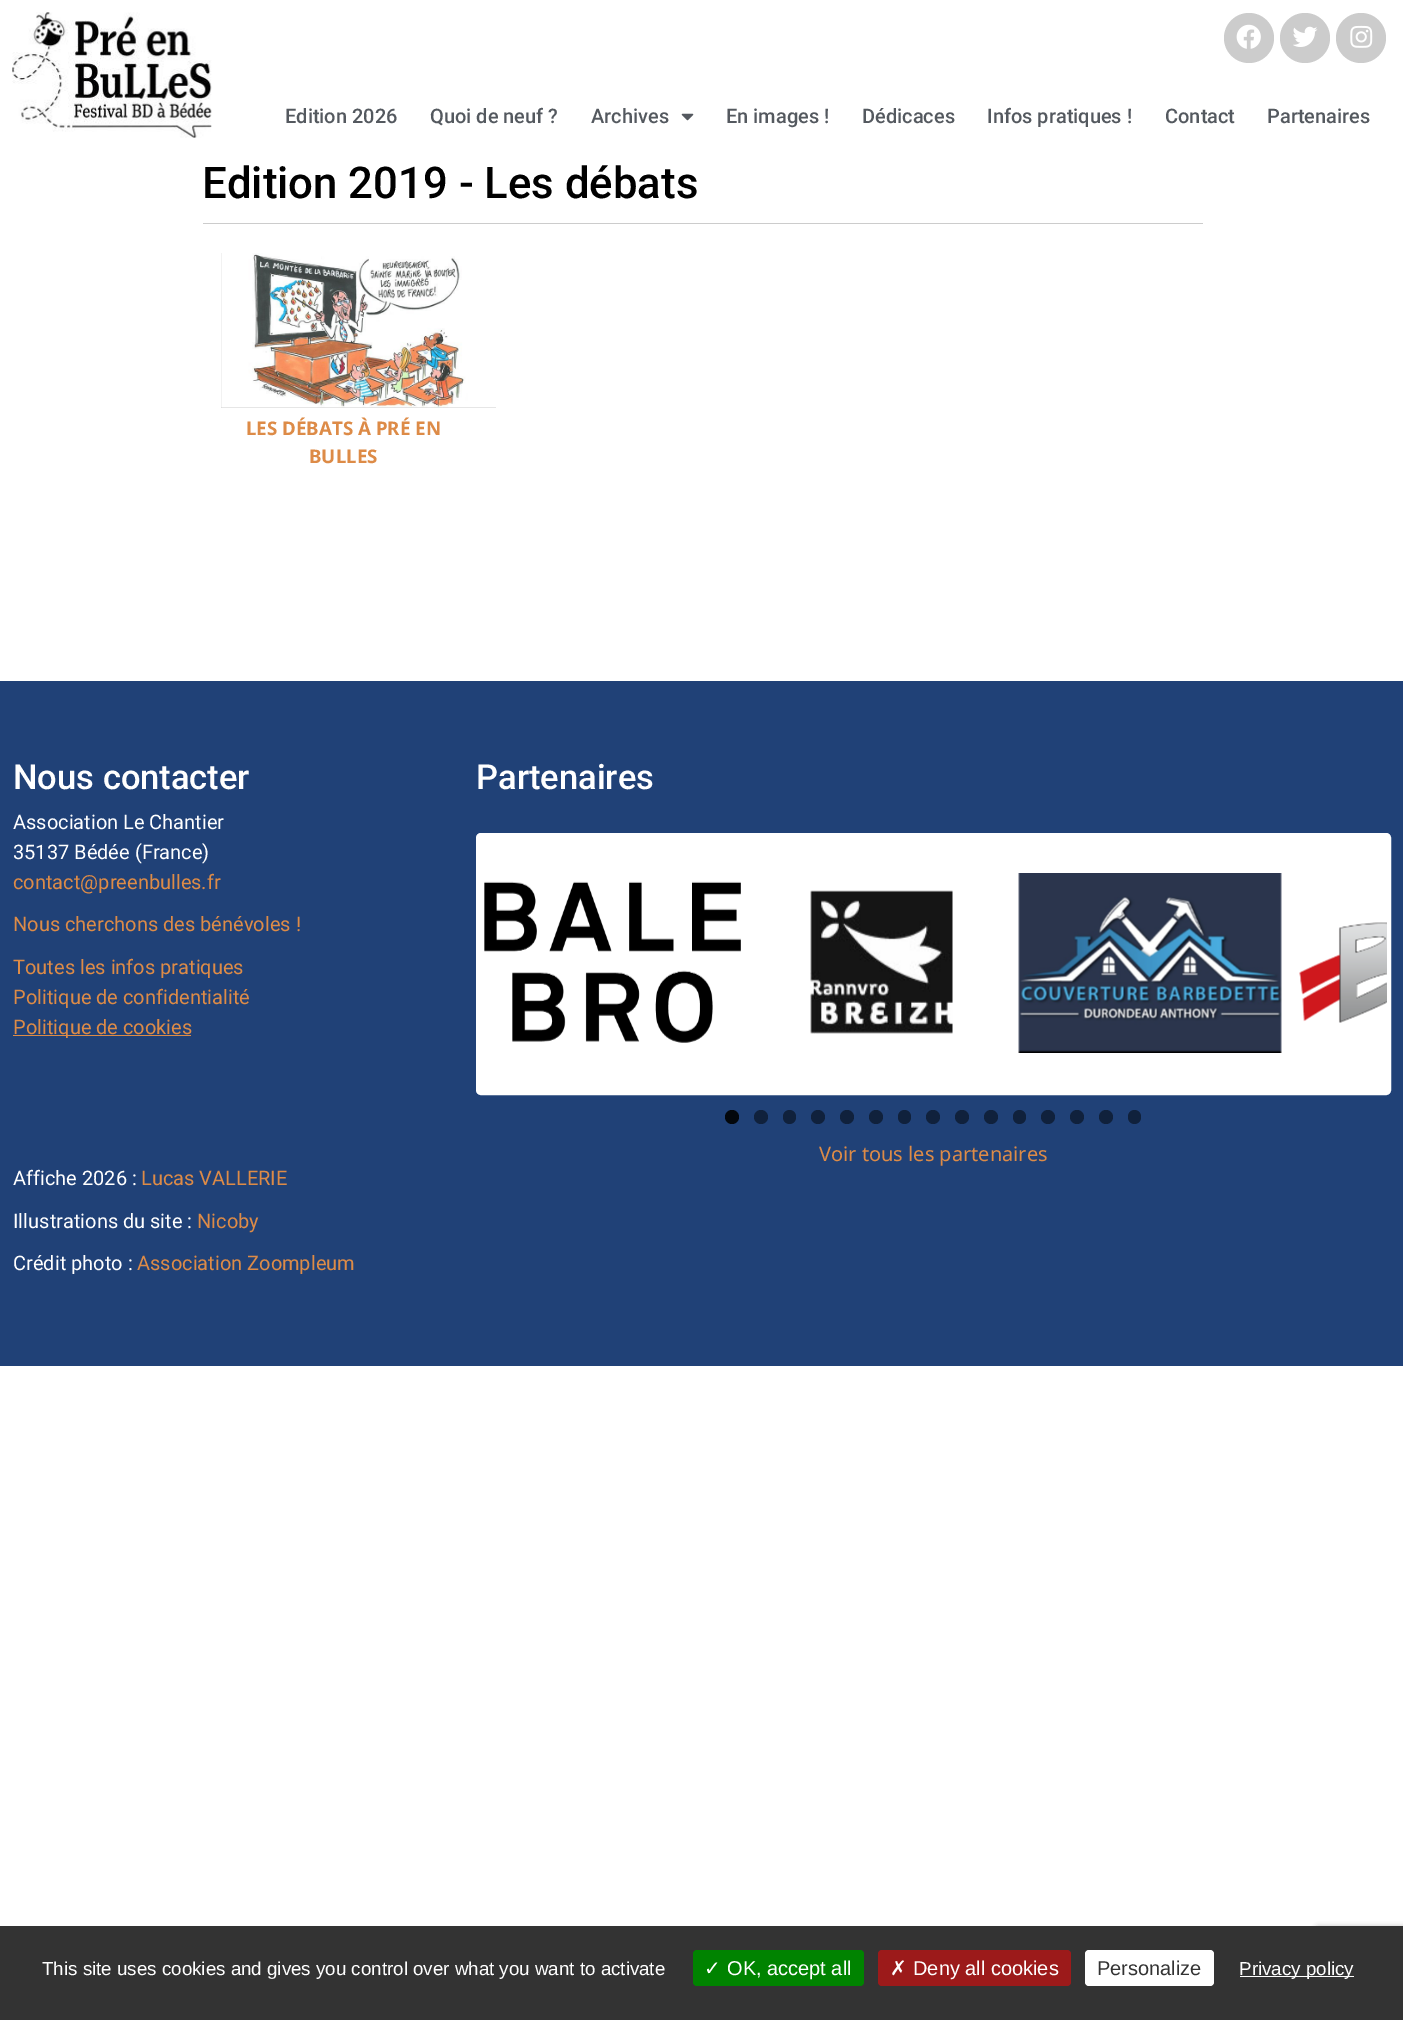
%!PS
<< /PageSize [1403 2020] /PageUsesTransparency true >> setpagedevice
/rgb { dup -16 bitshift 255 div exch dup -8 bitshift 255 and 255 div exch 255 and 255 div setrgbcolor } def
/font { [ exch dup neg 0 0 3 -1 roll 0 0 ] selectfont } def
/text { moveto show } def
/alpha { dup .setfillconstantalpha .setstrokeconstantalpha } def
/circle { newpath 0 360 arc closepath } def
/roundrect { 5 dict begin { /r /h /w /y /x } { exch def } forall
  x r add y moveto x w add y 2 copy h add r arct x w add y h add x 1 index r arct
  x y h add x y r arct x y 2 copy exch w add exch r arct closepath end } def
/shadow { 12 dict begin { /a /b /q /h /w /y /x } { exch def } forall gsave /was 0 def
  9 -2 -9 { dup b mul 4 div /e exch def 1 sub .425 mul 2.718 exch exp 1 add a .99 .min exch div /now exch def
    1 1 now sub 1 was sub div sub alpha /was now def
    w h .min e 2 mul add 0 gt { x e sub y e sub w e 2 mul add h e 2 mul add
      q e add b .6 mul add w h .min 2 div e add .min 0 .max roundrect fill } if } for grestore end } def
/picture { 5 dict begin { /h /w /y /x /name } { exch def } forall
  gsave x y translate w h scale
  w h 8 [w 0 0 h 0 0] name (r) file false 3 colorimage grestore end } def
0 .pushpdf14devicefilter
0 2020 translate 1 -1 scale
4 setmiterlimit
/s1 { /Roboto-Medium 20 font 16#54595F rgb } def
/s2 { /Roboto-Medium 43.75 font 16#000000 rgb } def
/s3 { /NotoSans-Bold 18.75 font 16#DD8B47 rgb } def
/s4 { /Roboto-Medium 34.5 font 16#FFFFFF rgb } def
/s5 { /Roboto-Regular 20 font 16#FFFFFF rgb } def
/s6 { /Roboto-Regular 20 font 16#DD8B47 rgb } def
/s7 { /NotoSans-Regular 20 font 16#DD8B47 rgb } def
/s8 { /LiberationSans-Regular 18.75 font 16#FFFFFF rgb } def
/s9 { /DejaVuSans-Regular 20 font 16#FFFFFF rgb } def
/s10 { /LiberationSans-Regular 20 font 16#FFFFFF rgb } def
/s11 { /LiberationSans-Regular 20 font 16#333333 rgb } def
16#FFFFFF rgb
0 0 1403 2020 rectfill
(pic1.raw) 12 12 200 126 picture
16#CCCCCC rgb
1249 38 25 circle fill
(pic2.raw) 1236 24 25 25 picture
1305 38 25 circle fill
(pic3.raw) 1293 26 25 21 picture
1361 38 25 circle fill
(pic4.raw) 1350 25 23 23 picture
s1
(Edition 2026) 285 123 text
(Quoi de neuf ?) 430 123 text
(Archives) 591 123 text
(pic5.raw) 681 113 13 8 picture
(En images !) 726 123 text
(Dédicaces) 862 123 text
(Infos pratiques !) 987 123 text
(Contact) 1165 123 text
(Partenaires) 1267 123 text
16#CCCCCC rgb
203 223 1000 1 rectfill
s2
(Edition 2019 - Les débats) 202 198 text
16#CCCCCC rgb
221 253 275 155 rectfill
(pic6.raw) 221 253 275 155 picture
s3
(LES DÉBATS À PRÉ EN) 246 435 text
(BULLES) 309 463 text
16#204177 rgb
0 681 1403 685 rectfill
s4
(Nous contacter) 13 789 text
s5
(Association Le Chantier) 13 829 text
(35137 Bédée \(France\)) 13 859 text
s6
(contact@preenbulles.fr) 13 889 text
(Nous cherchons des bénévoles !) 13 931 text
(Toutes les infos pratiques) 13 974 text
(Politique de confidentialité) 13 1004 text
13 1035 178 1 rectfill
(Politique de cookies) 13 1034 text
s5
(Affiche 2026 :) 13 1185 text
s6
(Lucas VALLERIE) 141 1185 text
s5
(Illustrations du site :) 13 1228 text
s6
(Nicoby) 197 1228 text
s5
(Crédit photo :) 13 1270 text
s6
(Association Zoompleum) 137 1270 text
s4
(Partenaires) 476 789 text
478.5 835.5 910 257 2.5 roundrect gsave fill grestore
5 setlinewidth
stroke
(pic7.raw) 484 881 257 162 picture
(pic8.raw) 810 890 143 144 picture
(pic9.raw) 1018 873 264 180 picture
(pic10.raw) 1299 922 88 101 picture
16#03070C rgb
732 1117 7 circle fill
16#10213C rgb
761 1117 7 circle fill
783 1110 13 14 6.5 roundrect fill
818 1117 7 circle fill
847 1117 7 circle fill
876 1117 7 circle fill
898 1110 13 14 6.5 roundrect fill
933 1117 7 circle fill
962 1117 7 circle fill
991 1117 7 circle fill
1013 1110 13 14 6.5 roundrect fill
1048 1117 7 circle fill
1077 1117 7 circle fill
1106 1117 7 circle fill
1128 1110 13 14 6.5 roundrect fill
s7
(Voir tous les partenaires) 819 1161 text
16#808080 rgb
1316 1928 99 75 2.5 3 1 shadow
16#333333 rgb
0 1926 1403 94 rectfill
s8
(This site uses cookies and gives you control over what you want to activate) 42 1975 text
16#008300 rgb
693 1950 171 36 4 roundrect fill
s9
(✓) 704 1975 text
s10
(OK, accept all) 727 1975 text
16#9C1A1A rgb
878 1950 193 36 4 roundrect fill
s9
(✗) 890 1975 text
s10
(Deny all cookies) 913 1975 text
1085 1950 129 36 4 roundrect fill
s11
(Personalize) 1097 1975 text
16#FFFFFF rgb
1240 1976 114 1 rectfill
s8
(Privacy policy) 1239 1975 text
.poppdf14devicefilter showpage
